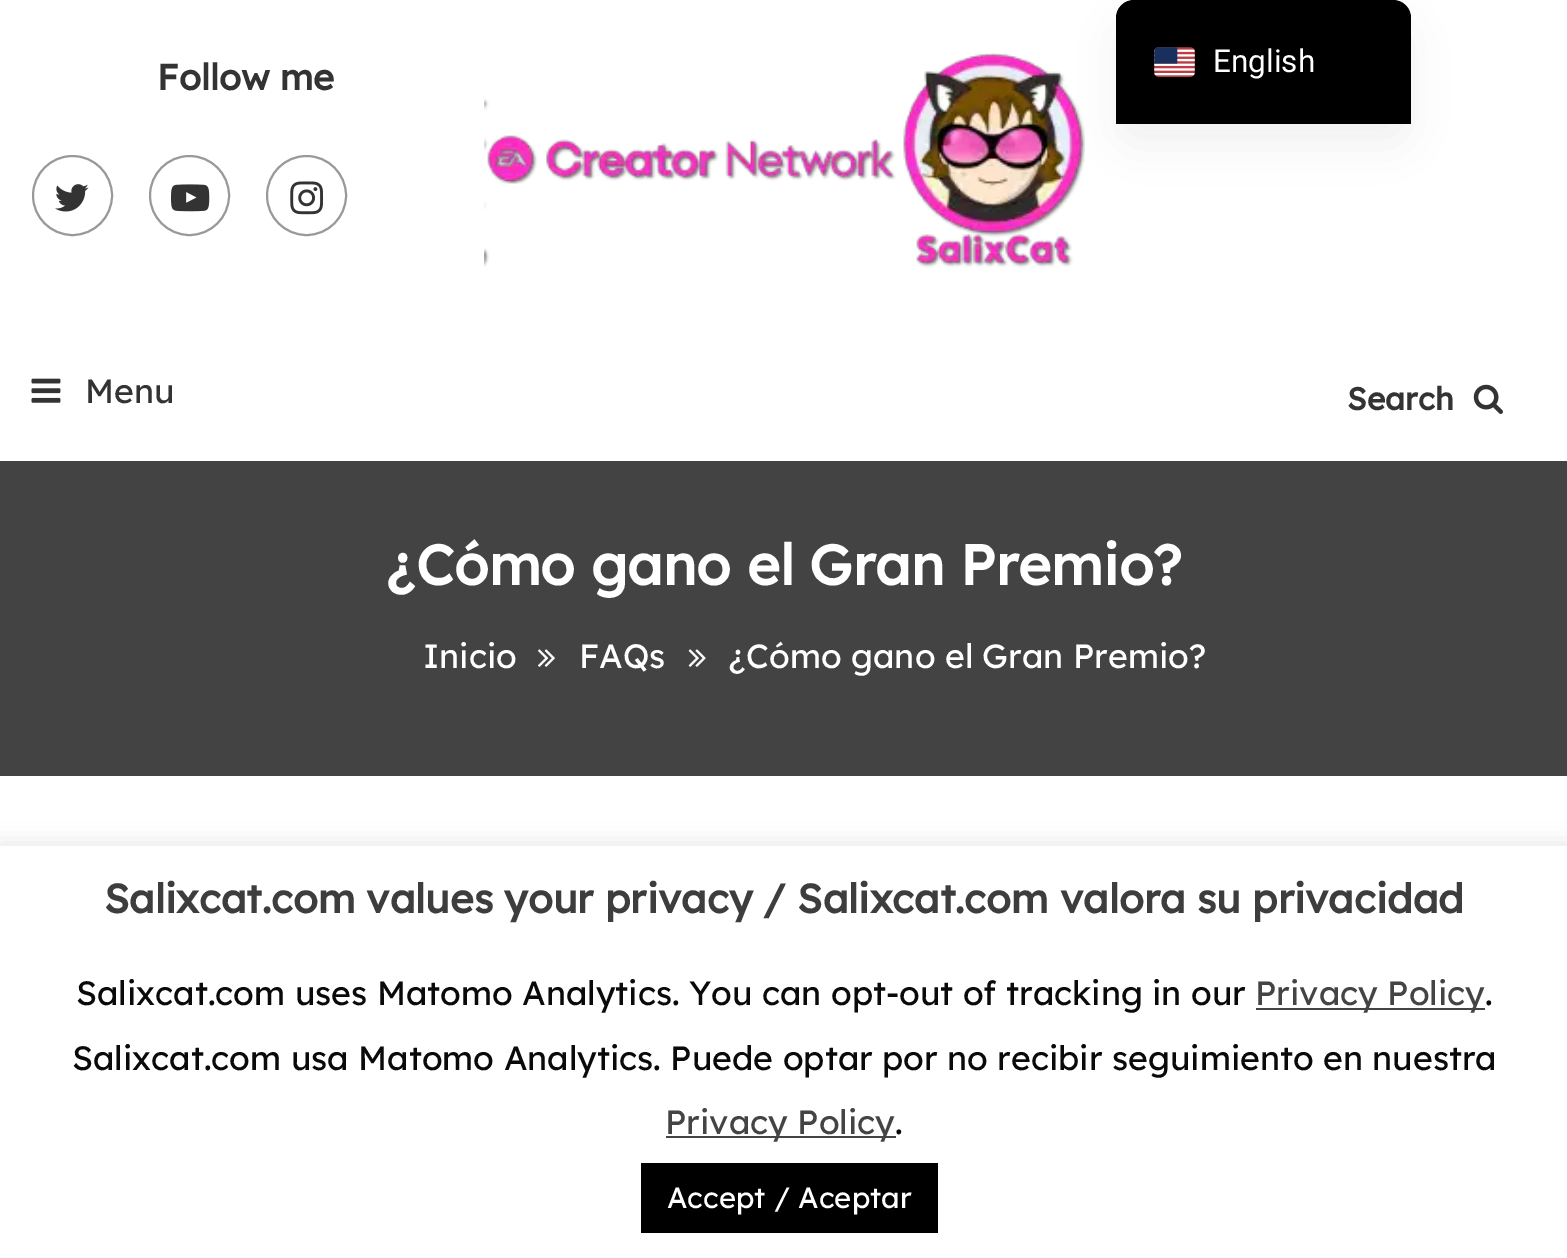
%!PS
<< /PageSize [1567 1258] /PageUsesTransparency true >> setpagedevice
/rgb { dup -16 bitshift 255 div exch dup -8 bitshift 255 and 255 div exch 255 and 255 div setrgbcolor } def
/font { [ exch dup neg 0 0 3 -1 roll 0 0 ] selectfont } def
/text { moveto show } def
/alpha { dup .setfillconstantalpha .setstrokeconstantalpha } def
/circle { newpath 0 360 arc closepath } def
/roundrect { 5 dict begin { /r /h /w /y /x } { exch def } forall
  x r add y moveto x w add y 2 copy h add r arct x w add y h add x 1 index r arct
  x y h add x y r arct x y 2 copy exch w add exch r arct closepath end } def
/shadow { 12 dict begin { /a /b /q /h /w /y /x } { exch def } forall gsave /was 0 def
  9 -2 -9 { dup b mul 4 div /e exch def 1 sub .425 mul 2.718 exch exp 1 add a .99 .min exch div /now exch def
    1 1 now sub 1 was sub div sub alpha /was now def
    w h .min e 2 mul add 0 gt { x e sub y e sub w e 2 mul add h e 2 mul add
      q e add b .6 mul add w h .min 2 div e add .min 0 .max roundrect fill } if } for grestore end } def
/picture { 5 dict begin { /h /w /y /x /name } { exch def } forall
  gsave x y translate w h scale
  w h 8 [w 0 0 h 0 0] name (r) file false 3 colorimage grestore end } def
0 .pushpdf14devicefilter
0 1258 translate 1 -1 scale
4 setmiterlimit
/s1 { /Roboto-Regular 31.5 font 16#FFFFFF rgb } def
/s2 { /LexendDeca-Bold 36 font 16#333333 rgb } def
/s3 { /LexendDeca-Regular 33.75 font 16#333333 rgb } def
/s4 { /LexendDeca-Bold 31.5 font 16#333333 rgb } def
/s5 { /LexendDeca-Bold 56.25 font 16#FFFFFF rgb } def
/s6 { /LexendDeca-Regular 33.75 font 16#FFFFFF rgb } def
/s7 { /LexendDeca-Bold 40.5 font 16#3D3D3D rgb } def
/s8 { /LexendDeca-Regular 33.75 font 16#0A0A0A rgb } def
/s9 { /LexendDeca-Regular 33.75 font 16#444444 rgb } def
/s10 { /LexendDeca-Regular 29.25 font 16#FFFFFF rgb } def
16#FFFFFF rgb
0 0 1567 1258 rectfill
(pic5.raw) 484 52 601 216 picture
16#000000 rgb
1116 23 295 123 18 22.5 0.05 shadow
1134 0 moveto 1393 0 lineto 1403 0 1411 8 1411 18 curveto 1411 124 lineto 1116 124 lineto 1116 18 lineto 1116 8 1124 0 1134 0 curveto closepath fill
(pic1.raw) 1154 47 41 30 picture
s1
(English) 1213 72 text
s2
(Follow me) 157 90 text
16#999999 rgb
2 setlinewidth
72.5 195.5 39.5 circle stroke
(pic2.raw) 55 184 34 28 picture
189.5 195.5 39.5 circle stroke
(pic3.raw) 171 184 39 28 picture
306.5 195.5 39.5 circle stroke
(pic4.raw) 290 181 34 34 picture
(pic6.raw) 31 378 30 25 picture
s3
(Menu) 85 403 text
s4
(Search) 1347 410 text
(pic7.raw) 1473 384 30 30 picture
16#434343 rgb
0 461 1567 315 rectfill
s5
(¿Cómo gano el Gran Premio?) 387 585 text
s6
(Inicio) 423 668 text
(pic8.raw) 538 649 17 18 picture
(FAQs) 579 668 text
(pic9.raw) 688 649 18 18 picture
(¿Cómo gano el Gran Premio?) 729 668 text
16#ACABAB rgb
0 844 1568 414 0 11 0.3 shadow
16#FFFFFF rgb
0 846 1567 412 rectfill
s7
(Salixcat.com values your privacy / Salixcat.com valora su privacidad) 104 913 text
s8
(Salixcat.com uses Matomo Analytics. You can opt-out of tracking in our) 76 1005 text
16#444444 rgb
1256 1008 229 2 rectfill
(Privacy Policy) 1255 1005 text
s8
(.) 1485 1005 text
(Salixcat.com usa Matomo Analytics. Puede optar por no recibir seguimiento en nuestra) 72 1070 text
16#444444 rgb
666 1136 230 2 rectfill
(Privacy Policy) 665 1134 text
s8
(.) 895 1134 text
16#000000 rgb
641 1163 297 70 rectfill
s10
(Accept / Aceptar) 667 1208 text
.poppdf14devicefilter showpage
